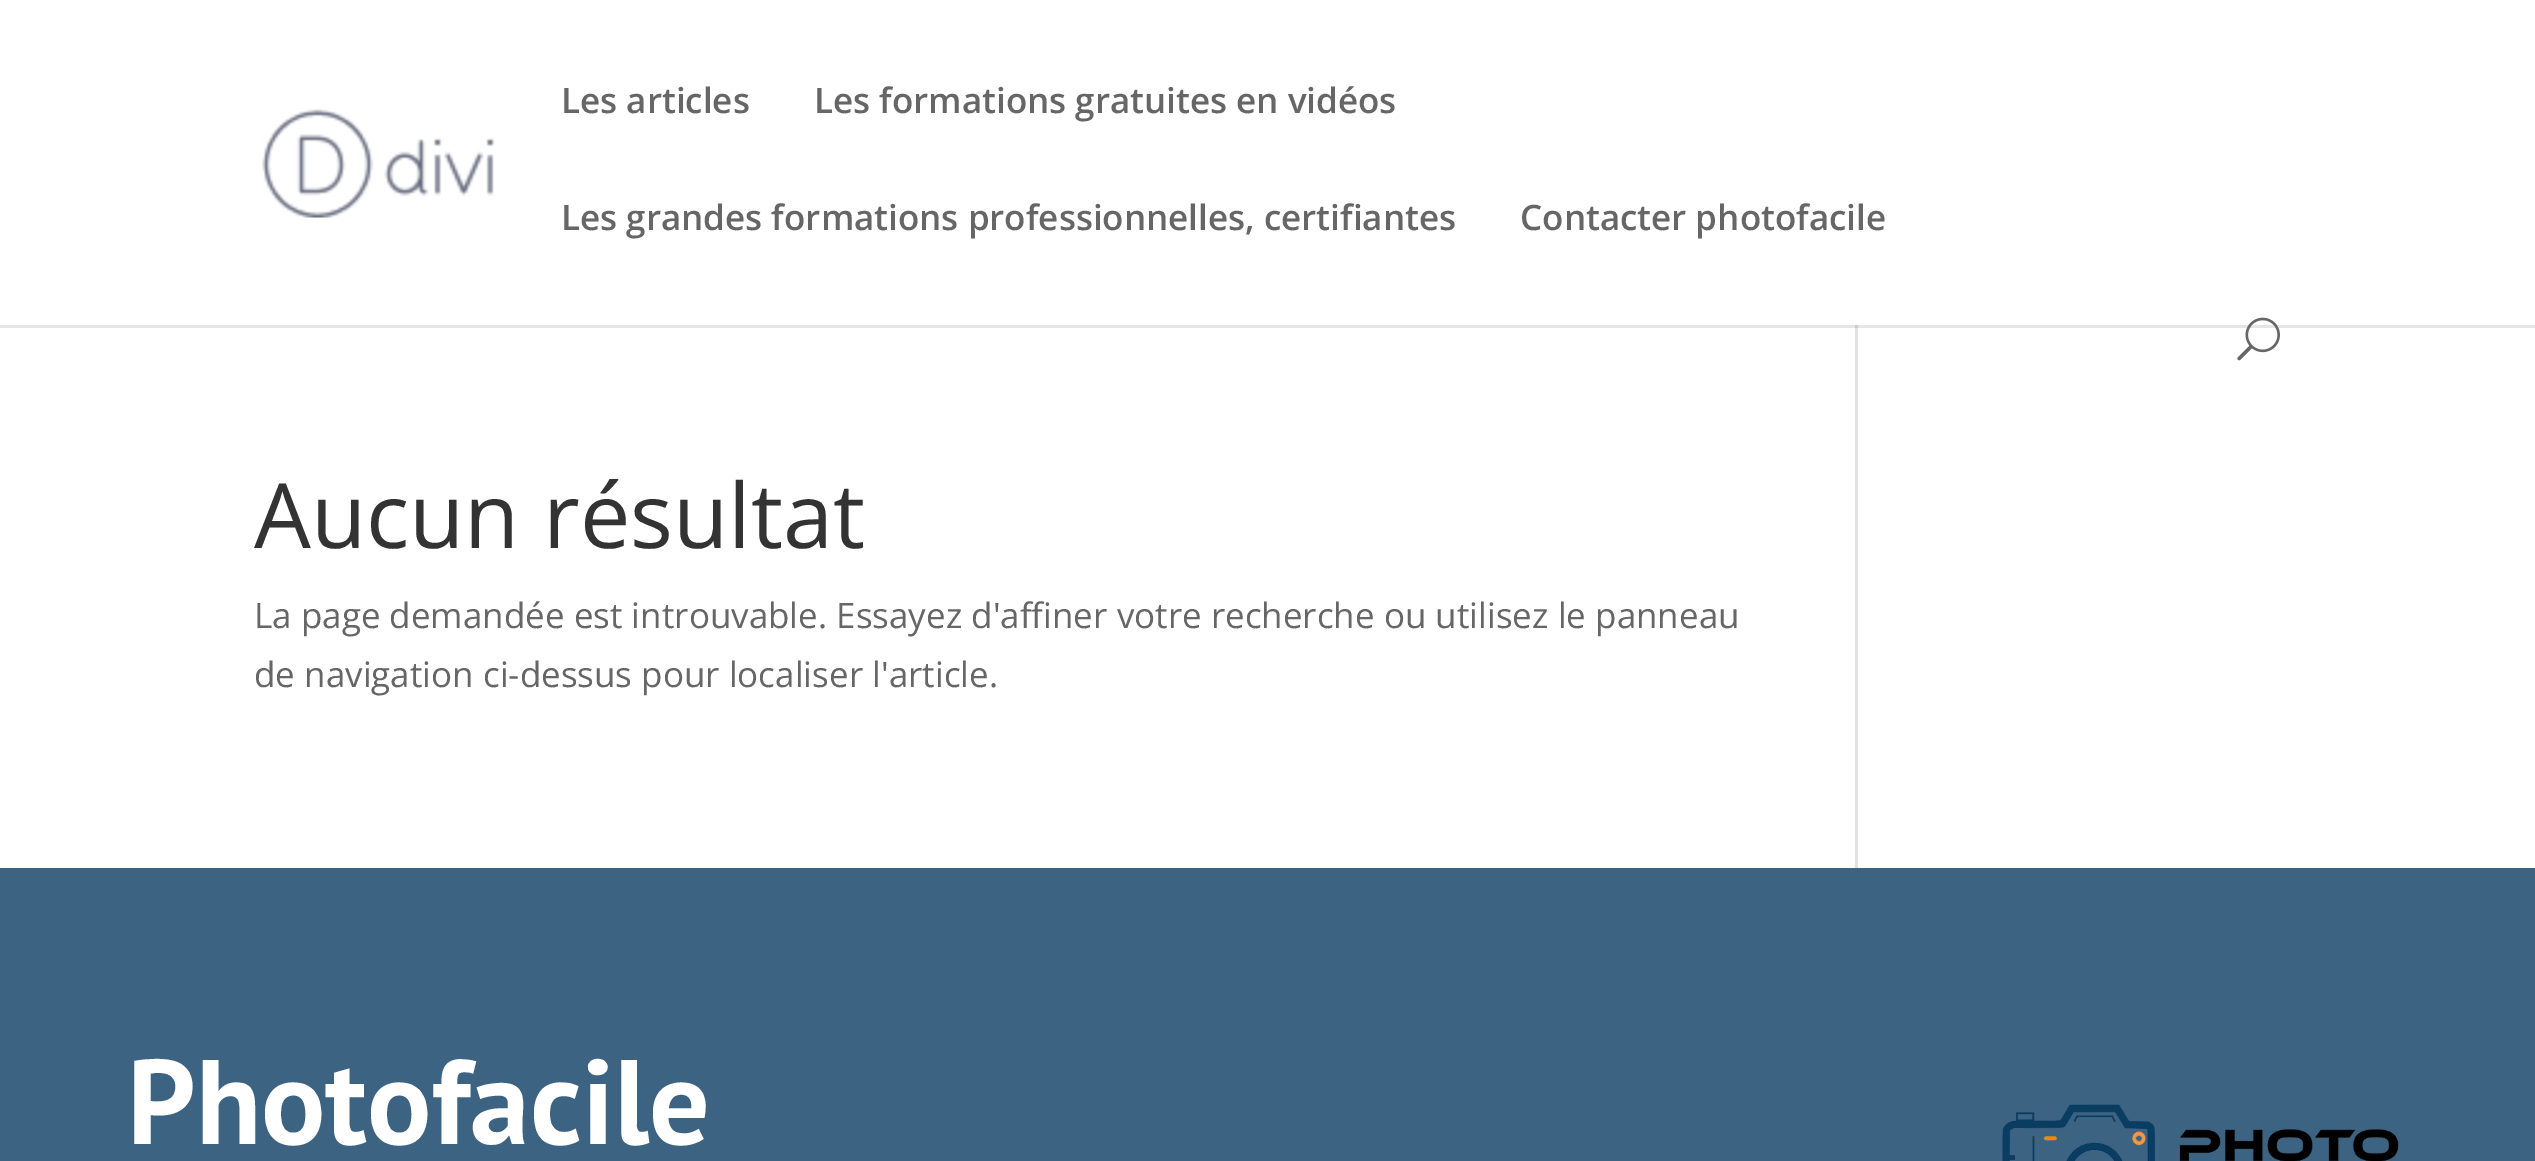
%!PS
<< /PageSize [2535 1161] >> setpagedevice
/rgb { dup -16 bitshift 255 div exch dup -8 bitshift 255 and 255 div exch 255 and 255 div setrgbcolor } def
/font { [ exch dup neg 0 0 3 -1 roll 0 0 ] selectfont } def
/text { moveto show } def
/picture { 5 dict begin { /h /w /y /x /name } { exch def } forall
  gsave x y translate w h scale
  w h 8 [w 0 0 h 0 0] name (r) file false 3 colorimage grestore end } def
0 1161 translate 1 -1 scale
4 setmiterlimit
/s1 { /OpenSans-SemiBold 35 font 16#666666 rgb } def
/s2 { /OpenSans-Regular 90 font 16#333333 rgb } def
/s3 { /OpenSans-Regular 35 font 16#666666 rgb } def
/s4 { /PTSans-Bold 120 font 16#FFFFFF rgb } def
16#FFFFFF rgb
0 0 2535 1161 rectfill
16#E6E6E6 rgb
0 325 2535 3 rectfill
(pic1.raw) 262 109 233 109 picture
s1
(Les articles) 561 113 text
(Les formations gratuites en vidéos) 814 113 text
(Les grandes formations professionnelles, certifiantes) 561 230 text
(Contacter photofacile) 1520 230 text
(pic2.raw) 2237 317 43 44 picture
s2
(Aucun résultat) 254 548 text
s3
(La page demandée est introuvable. Essayez d'affiner votre recherche ou utilisez le panneau) 254 628 text
(de navigation ci-dessus pour localiser l'article.) 254 687 text
16#E2E2E2 rgb
1855 325 3 543 rectfill
16#CBCBCB rgb
1855 325 3 3 rectfill
16#3C6382 rgb
0 868 2535 293 rectfill
s4
(Photofacile) 127 1144 text
(pic3.raw) 2002 1104 397 57 picture
showpage
